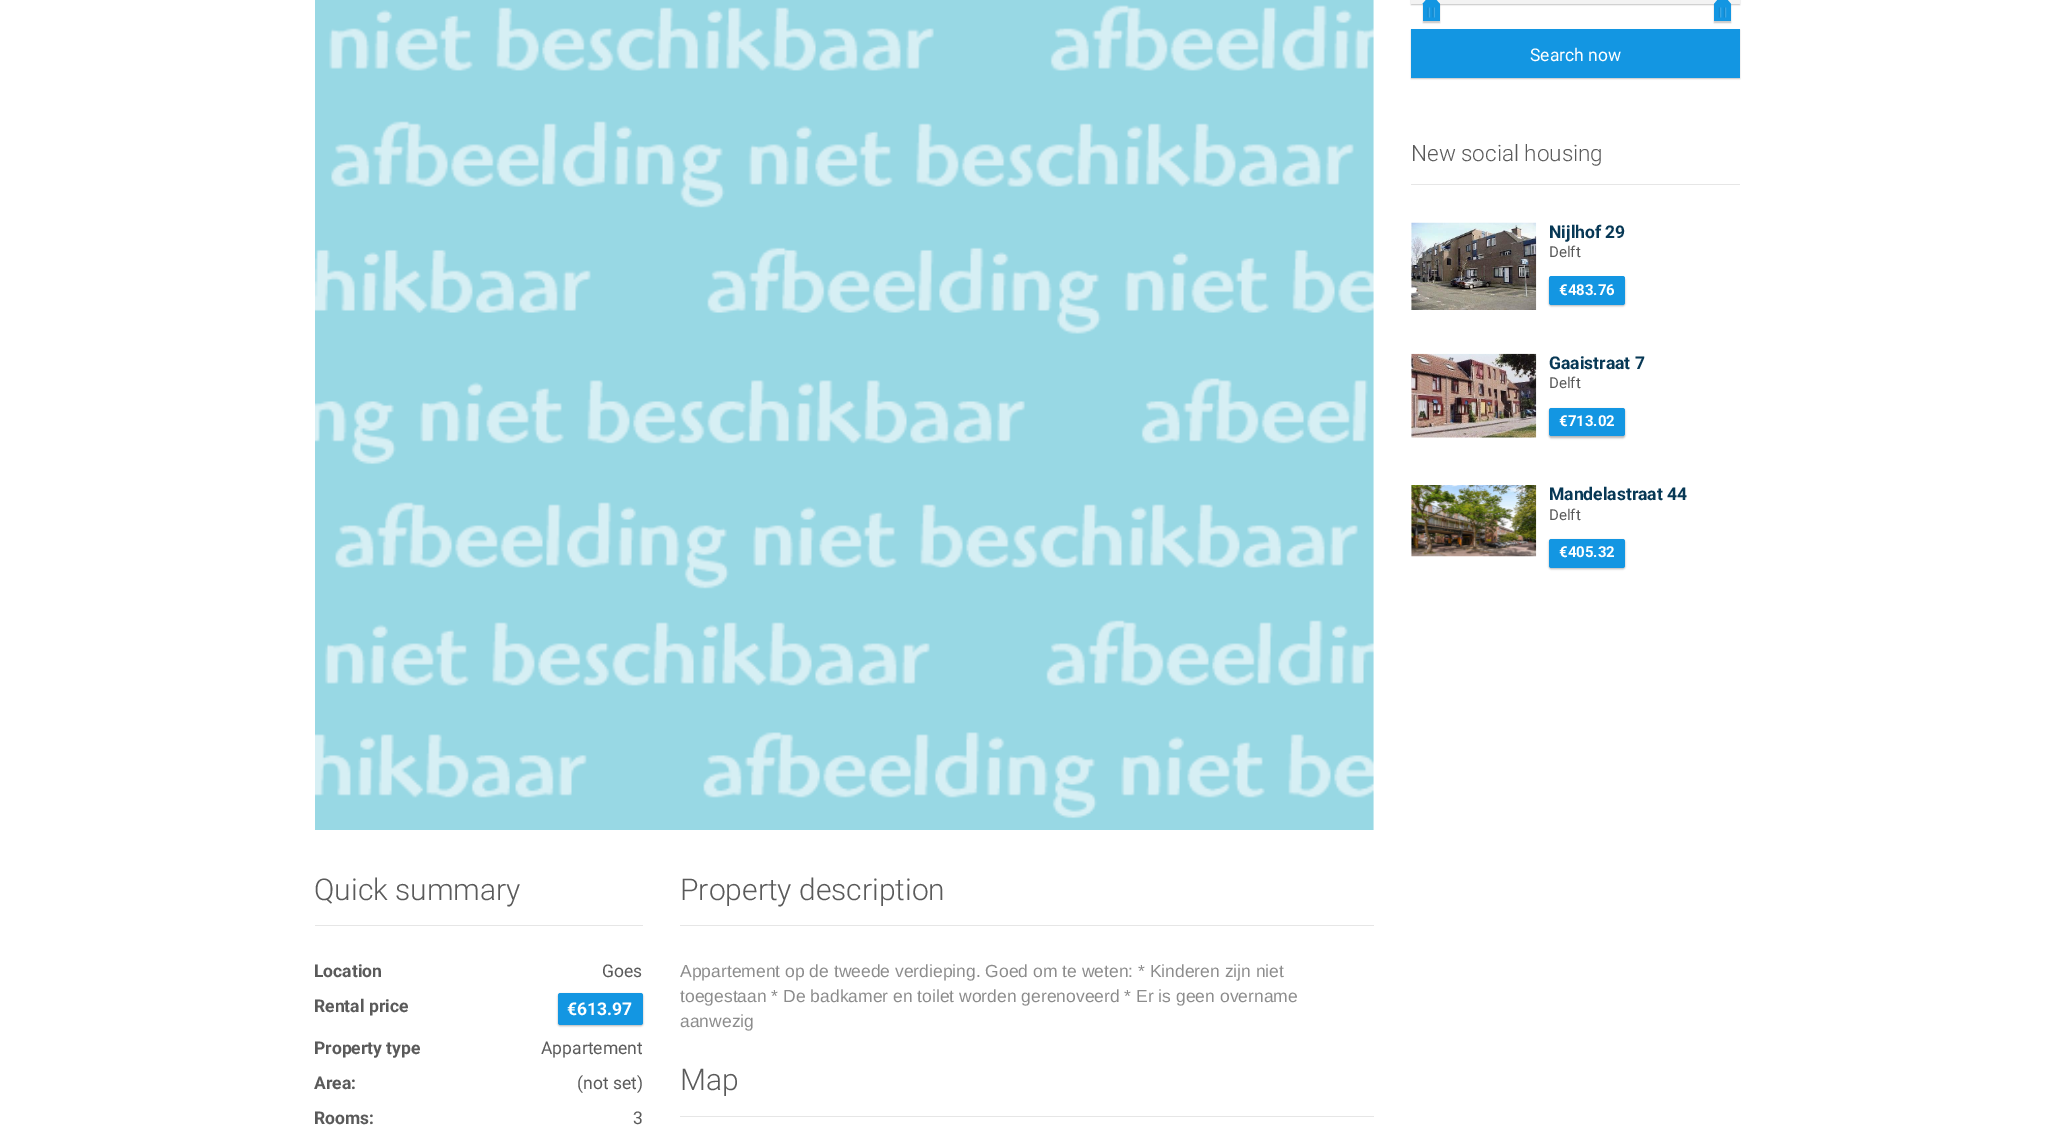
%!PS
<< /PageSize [2053 1129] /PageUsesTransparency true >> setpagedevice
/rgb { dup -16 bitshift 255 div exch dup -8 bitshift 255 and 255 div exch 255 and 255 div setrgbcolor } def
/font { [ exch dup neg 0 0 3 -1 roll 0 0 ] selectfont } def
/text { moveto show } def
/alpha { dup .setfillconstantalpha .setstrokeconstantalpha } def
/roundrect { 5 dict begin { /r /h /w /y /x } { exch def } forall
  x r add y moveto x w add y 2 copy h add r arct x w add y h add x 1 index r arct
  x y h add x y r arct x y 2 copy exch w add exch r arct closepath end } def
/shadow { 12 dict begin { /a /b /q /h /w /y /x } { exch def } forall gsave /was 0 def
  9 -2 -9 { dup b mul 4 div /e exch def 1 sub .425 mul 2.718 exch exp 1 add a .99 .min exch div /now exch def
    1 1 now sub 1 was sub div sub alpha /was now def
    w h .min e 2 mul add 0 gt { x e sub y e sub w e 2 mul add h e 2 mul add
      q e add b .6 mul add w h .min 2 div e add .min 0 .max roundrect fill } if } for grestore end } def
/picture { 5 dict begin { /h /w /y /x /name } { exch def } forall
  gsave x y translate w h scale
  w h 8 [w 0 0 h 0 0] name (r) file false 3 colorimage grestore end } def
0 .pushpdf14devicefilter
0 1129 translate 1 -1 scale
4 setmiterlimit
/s1 { /Roboto-Regular 17.5 font 16#FFFFFF rgb } def
/s2 { /Roboto-Light 22.5 font 16#5A5A5A rgb } def
/s3 { /Roboto-Bold 17.5 font 16#073855 rgb } def
/s4 { /Roboto-Regular 15 font 16#5A5A5A rgb } def
/s5 { /Roboto-Bold 15 font 16#FFFFFF rgb } def
/s6 { /Roboto-Light 30 font 16#5A5A5A rgb } def
/s7 { /Roboto-Bold 17.5 font 16#5A5A5A rgb } def
/s8 { /Roboto-Regular 17.5 font 16#5A5A5A rgb } def
/s9 { /Roboto-Bold 17.5 font 16#FFFFFF rgb } def
/s10 { /LiberationSans-Regular 17.5 font 16#8C8C8C rgb } def
16#FFFFFF rgb
0 0 2053 1129 rectfill
16#000000 rgb
1411 -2 329 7 0 0.5 0.2 shadow
16#F3F3F3 rgb
1411 0 329 4 rectfill
16#000000 rgb
1423 5 17 18 0 0.5 0.2 shadow
16#1396E2 rgb
1423 4 17 17 rectfill
(pic1.raw) 1427 7 8 11 picture
1440 4 moveto 1422.5 4 lineto 1431 -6 lineto closepath fill
16#000000 rgb
1714 5 17 18 0 0.5 0.2 shadow
16#1396E2 rgb
1714 4 17 17 rectfill
(pic2.raw) 1718 7 9 11 picture
1731 4 moveto 1714 4 lineto 1722.5 -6 lineto closepath fill
16#000000 rgb
1411 30 329 49 0 0.5 0.2 shadow
16#1396E2 rgb
1411 29 329 49 rectfill
s1
(Search now) 1530 61 text
16#E6E6E6 rgb
1411 184 329 1 rectfill
s2
(New social housing) 1411 161 text
(pic3.raw) 1411 222 126 88 picture
s3
(Nijlhof 29) 1549 238 text
s4
(Delft) 1549 257 text
16#000000 rgb
1549 278 76 28 2.5 1 0.3 shadow
16#1396E2 rgb
1549 276 76 29 2.5 roundrect fill
s5
(€483.76) 1559 295 text
(pic4.raw) 1411 353 126 85 picture
s3
(Gaaistraat 7) 1549 369 text
s4
(Delft) 1549 388 text
16#000000 rgb
1549 409 76 29 2.5 1 0.3 shadow
16#1396E2 rgb
1549 408 76 28 2.5 roundrect fill
s5
(€713.02) 1559 426 text
(pic5.raw) 1411 485 126 72 picture
s3
(Mandelastraat 44) 1549 500 text
s4
(Delft) 1549 520 text
16#000000 rgb
1549 540 76 29 2.5 1 0.3 shadow
16#1396E2 rgb
1549 539 76 29 2.5 roundrect fill
s5
(€405.32) 1559 557 text
(pic6.raw) 315 0 1059 830 picture
16#E6E6E6 rgb
315 925 328 1 rectfill
s6
(Quick summary) 314 900 text
s7
(Location) 314 977 text
s8
(Goes) 602 977 text
s7
(Rental price) 314 1012 text
16#000000 rgb
558 994 85 32 2.5 1 0.3 shadow
16#1396E2 rgb
558 993 85 32 2.5 roundrect fill
s9
(€613.97) 567 1015 text
s7
(Property type) 314 1054 text
s8
(Appartement) 541 1054 text
s7
(Area:) 314 1089 text
s8
(\(not set\)) 577 1089 text
s7
(Rooms:) 314 1124 text
s8
(3) 633 1124 text
16#E6E6E6 rgb
680 925 694 1 rectfill
s6
(Property description) 680 900 text
s10
(Appartement op de tweede verdieping. Goed om te weten: * Kinderen zijn niet) 680 977 text
(toegestaan * De badkamer en toilet worden gerenoveerd * Er is geen overname) 680 1002 text
(aanwezig) 680 1027 text
16#E6E6E6 rgb
680 1116 694 1 rectfill
s6
(Map) 680 1090 text
.poppdf14devicefilter showpage
